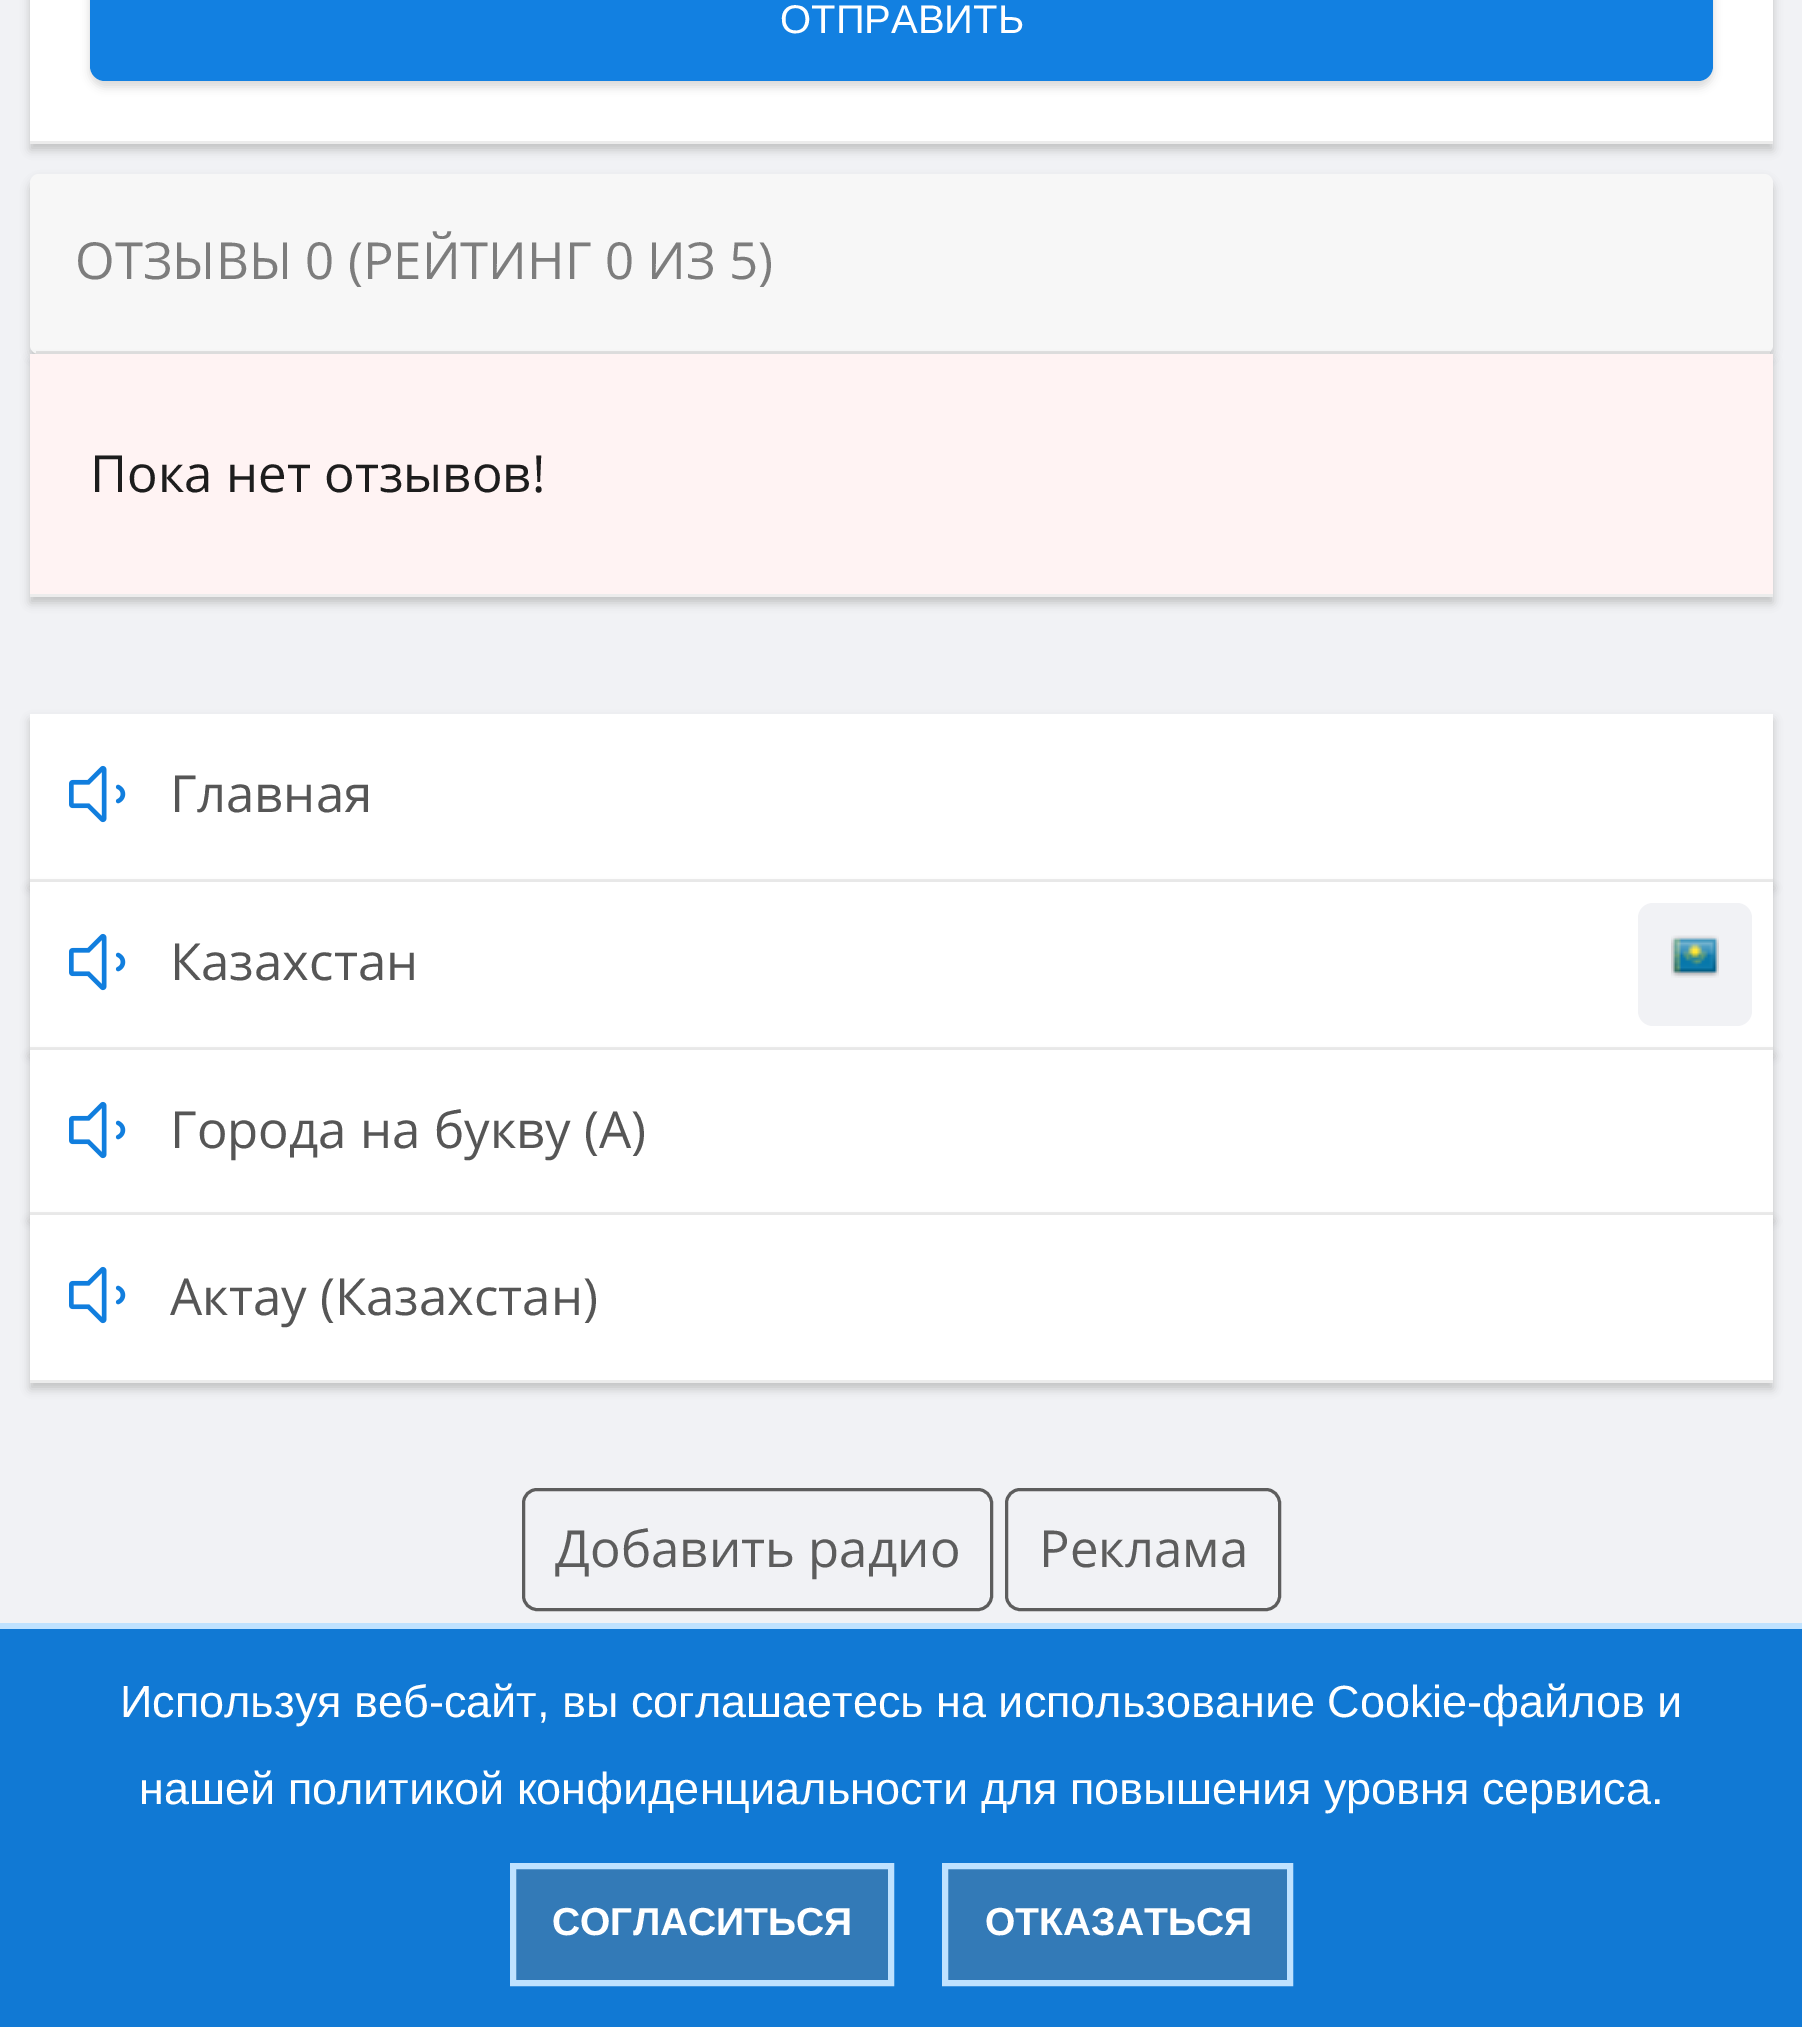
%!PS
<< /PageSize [1802 2027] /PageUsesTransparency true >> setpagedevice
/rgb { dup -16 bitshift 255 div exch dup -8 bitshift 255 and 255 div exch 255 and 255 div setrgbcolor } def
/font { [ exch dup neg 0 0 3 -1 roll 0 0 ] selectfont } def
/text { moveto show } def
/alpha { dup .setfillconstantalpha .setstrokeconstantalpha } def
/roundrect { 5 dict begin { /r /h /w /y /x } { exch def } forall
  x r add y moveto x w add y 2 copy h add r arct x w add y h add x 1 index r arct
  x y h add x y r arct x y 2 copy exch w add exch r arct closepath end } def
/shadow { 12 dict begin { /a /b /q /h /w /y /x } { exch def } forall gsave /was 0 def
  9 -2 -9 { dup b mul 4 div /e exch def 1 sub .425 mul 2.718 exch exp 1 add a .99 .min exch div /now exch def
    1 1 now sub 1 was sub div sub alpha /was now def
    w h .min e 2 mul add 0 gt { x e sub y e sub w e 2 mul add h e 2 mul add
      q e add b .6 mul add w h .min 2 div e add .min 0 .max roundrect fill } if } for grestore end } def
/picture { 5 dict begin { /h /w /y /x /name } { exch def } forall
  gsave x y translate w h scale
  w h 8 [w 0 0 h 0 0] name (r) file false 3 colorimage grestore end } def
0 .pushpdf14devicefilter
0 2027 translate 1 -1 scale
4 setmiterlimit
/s1 { /LiberationSans-Regular 40 font 16#FFFFFF rgb } def
/s2 { /OpenSans-Regular 51 font 16#7D7D7D rgb } def
/s3 { /OpenSans-Regular 51 font 16#1D1D1D rgb } def
/s4 { /OpenSans-Regular 51 font 16#565656 rgb } def
/s5 { /OpenSans-Regular 51 font 16#5D5D5D rgb } def
/s6 { /LiberationSans-Regular 45 font 16#FFFFFF rgb } def
/s7 { /LiberationSans-Bold 39 font 16#FFFFFF rgb } def
16#F1F2F5 rgb
0 0 1802 2027 rectfill
16#000000 rgb
30 -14 1743 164 0 4.5 0.19 shadow
16#FFFFFF rgb
30 0 1743 141 rectfill
16#ECECEC rgb
30 141 1743 3 rectfill
16#000000 rgb
90 -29 1623 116 15 4.5 0.15 shadow
16#1280E1 rgb
90 -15 1623 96 15 roundrect fill
s1
(ОТПРАВИТЬ) 780 33 text
16#000000 rgb
30 180 1743 180 9 4.5 0.19 shadow
16#F7F7F7 rgb
30 174 1743 180 9 roundrect fill
16#E0E0E0 rgb
36 351 1734 3 rectfill
s2
(ОТЗЫВЫ 0 \(РЕЙТИНГ 0 ИЗ 5\)) 75 279 text
16#000000 rgb
30 360 1743 243 0 4.5 0.19 shadow
16#FFF3F3 rgb
30 354 1743 240 rectfill
16#ECECEC rgb
30 594 1743 3 rectfill
s3
(Пока нет отзывов!) 90 492 text
16#000000 rgb
30 720 1743 168 0 4.5 0.19 shadow
16#FFFFFF rgb
30 714 1743 165 rectfill
16#ECECEC rgb
30 879 1743 3 rectfill
(pic1.raw) 69 765 57 58 picture
s4
(Главная) 170 812 text
16#000000 rgb
30 888 1743 168 0 4.5 0.19 shadow
16#FFFFFF rgb
30 882 1743 165 rectfill
16#ECECEC rgb
30 1047 1743 3 rectfill
(pic1.raw) 69 933 57 58 picture
s4
(Казахстан) 170 980 text
16#F1F2F5 rgb
1638 903 114 123 15 roundrect fill
(pic2.raw) 1671 935 48 43 picture
16#000000 rgb
30 1056 1743 165 0 4.5 0.19 shadow
16#FFFFFF rgb
30 1050 1743 162 rectfill
16#ECECEC rgb
30 1212 1743 3 rectfill
(pic1.raw) 69 1101 57 58 picture
s4
(Города на букву \(А\)) 170 1148 text
16#000000 rgb
30 1221 1743 168 0 4.5 0.19 shadow
16#FFFFFF rgb
30 1215 1743 165 rectfill
16#ECECEC rgb
30 1380 1743 3 rectfill
(pic1.raw) 69 1266 57 58 picture
s4
(Актау \(Казахстан\)) 170 1315 text
16#5D5D5D rgb
3 setlinewidth
523.5 1489.5 468 120 13.5 roundrect stroke
(Добавить радио) 555 1567 text
1006.5 1489.5 273 120 13.5 roundrect stroke
(Реклама) 1039 1567 text
16#1179D4 rgb
0 1629 1802 398 rectfill
16#BFE2FF rgb
0 1623 1802 6 rectfill
s6
(Используя веб-сайт, вы соглашаетесь на использование Cookie-файлов и) 120 1717 text
(нашей политикой конфиденциальности для повышения уровня сервиса.) 139 1804 text
16#337AB7 rgb
513 1866 moveto 891 1866 lineto 891 1983 lineto 513 1983 lineto closepath gsave fill grestore
16#BFE2FF rgb
6 setlinewidth
stroke
s7
(СОГЛАСИТЬСЯ) 552 1935 text
16#337AB7 rgb
945 1866 moveto 1290 1866 lineto 1290 1983 lineto 945 1983 lineto closepath gsave fill grestore
16#BFE2FF rgb
stroke
s7
(ОТКАЗАТЬСЯ) 985 1935 text
.poppdf14devicefilter showpage
